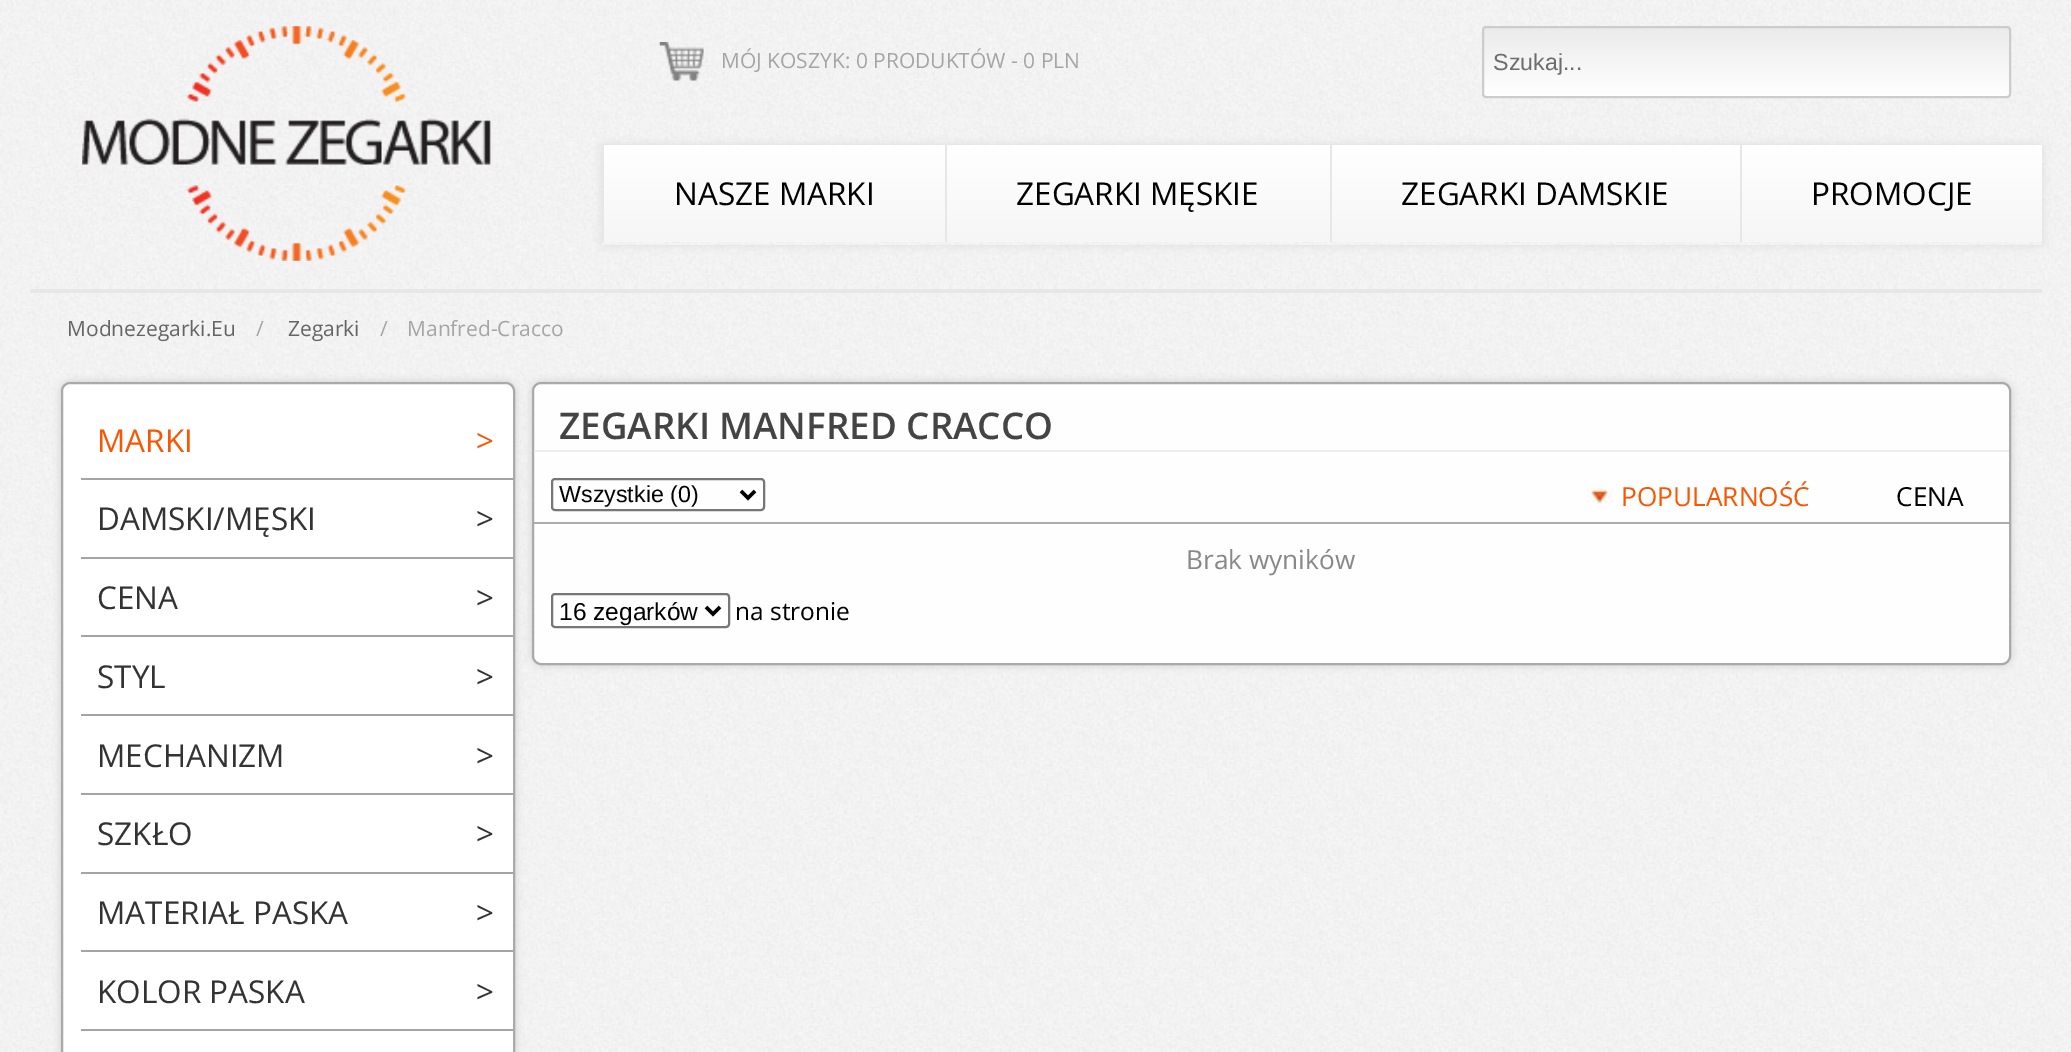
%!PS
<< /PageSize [2071 1052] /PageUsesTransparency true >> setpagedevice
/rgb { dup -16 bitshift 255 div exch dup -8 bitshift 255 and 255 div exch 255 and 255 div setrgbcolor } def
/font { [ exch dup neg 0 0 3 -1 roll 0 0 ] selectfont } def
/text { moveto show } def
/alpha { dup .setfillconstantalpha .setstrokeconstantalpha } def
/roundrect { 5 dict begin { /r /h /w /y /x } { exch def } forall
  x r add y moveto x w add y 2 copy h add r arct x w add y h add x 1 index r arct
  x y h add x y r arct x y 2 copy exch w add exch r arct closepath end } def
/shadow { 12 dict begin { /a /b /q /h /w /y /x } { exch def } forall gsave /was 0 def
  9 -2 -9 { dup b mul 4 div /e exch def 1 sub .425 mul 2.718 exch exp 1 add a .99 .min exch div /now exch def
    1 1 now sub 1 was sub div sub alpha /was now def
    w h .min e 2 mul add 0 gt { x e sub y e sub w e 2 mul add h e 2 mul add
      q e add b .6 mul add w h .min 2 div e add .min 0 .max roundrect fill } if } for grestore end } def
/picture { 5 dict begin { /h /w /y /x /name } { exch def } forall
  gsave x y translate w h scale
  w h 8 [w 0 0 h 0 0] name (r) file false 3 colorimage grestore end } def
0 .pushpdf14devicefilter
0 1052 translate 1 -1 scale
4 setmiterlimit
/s1 { /OpenSans-Regular 21 font 16#A5A5A6 rgb } def
/s2 { /LiberationSans-Regular 23.25 font 16#6D6D6D rgb } def
/s3 { /OpenSans-Regular 31.5 font 16#000000 rgb } def
/s4 { /OpenSans-Regular 21 font 16#656565 rgb } def
/s5 { /OpenSans-Regular 31.5 font 16#F85603 rgb } def
/s6 { /OpenSans-Regular 31.5 font 16#333333 rgb } def
/s7 { /OpenSans-SemiBold 36.75 font 16#444444 rgb } def
/s8 { /LiberationSans-Regular 23.25 font 16#000000 rgb } def
/s9 { /OpenSans-Regular 26.25 font 16#F85603 rgb } def
/s10 { /OpenSans-Regular 26.25 font 16#000000 rgb } def
/s11 { /OpenSans-Regular 26.25 font 16#888888 rgb } def
/s12 { /LiberationSans-Regular 24.5 font 16#000000 rgb } def
/s13 { /OpenSans-Regular 24.5 font 16#000000 rgb } def
16#FFFFFF rgb
0 0 2071 1052 rectfill
(pic1.raw) 0 0 2071 1052 picture
16#E7E7E7 rgb
30 289 2012 4 rectfill
(pic2.raw) 82 26 409 235 picture
(pic3.raw) 659 42 45 39 picture
s1
(MÓJ KOSZYK: 0 PRODUKTÓW - 0 PLN) 721 68 text
gsave
1482 26 529 72 4 roundrect clip newpath
gsave 1482 28 moveto 2011 28 lineto 2011 96 lineto 1482 96 lineto closepath clip newpath
<< /ShadingType 2 /ColorSpace /DeviceRGB /Coords [1747 28 1747 96] /Extend [true true] /Function << /FunctionType 2 /Domain [0 1] /C0 [0.922 0.922 0.922] /C1 [1 1 1] /N 1 >> >> shfill grestore
grestore
16#CCCCCC rgb
2 setlinewidth
1483 27 527 70 3 roundrect stroke
s2
(Szukaj...) 1493 70 text
gsave
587 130 moveto 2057 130 lineto 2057 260 lineto 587 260 lineto closepath 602 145 moveto 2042 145 lineto 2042 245 lineto 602 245 lineto closepath eoclip newpath
16#DDDDDD rgb
602 145 1440 100 0 4.5 1 shadow
grestore
gsave 604 145 moveto 945 145 lineto 945 242 lineto 604 242 lineto closepath clip newpath
<< /ShadingType 2 /ColorSpace /DeviceRGB /Coords [774 145 774 242] /Extend [true true] /Function << /FunctionType 2 /Domain [0 1] /C0 [1 1 1] /C1 [0.965 0.965 0.965] /N 1 >> >> shfill grestore
16#E7E7E7 rgb
602 145 2 97 rectfill
s3
(NASZE MARKI) 674 205 text
gsave 947 145 moveto 1330 145 lineto 1330 242 lineto 947 242 lineto closepath clip newpath
<< /ShadingType 2 /ColorSpace /DeviceRGB /Coords [1138 145 1138 242] /Extend [true true] /Function << /FunctionType 2 /Domain [0 1] /C0 [1 1 1] /C1 [0.965 0.965 0.965] /N 1 >> >> shfill grestore
16#E7E7E7 rgb
945 145 2 97 rectfill
s3
(ZEGARKI MĘSKIE) 1016 205 text
gsave 1332 145 moveto 1740 145 lineto 1740 242 lineto 1332 242 lineto closepath clip newpath
<< /ShadingType 2 /ColorSpace /DeviceRGB /Coords [1536 145 1536 242] /Extend [true true] /Function << /FunctionType 2 /Domain [0 1] /C0 [1 1 1] /C1 [0.965 0.965 0.965] /N 1 >> >> shfill grestore
16#E7E7E7 rgb
1330 145 2 97 rectfill
s3
(ZEGARKI DAMSKIE) 1401 205 text
gsave 1742 145 moveto 2042 145 lineto 2042 242 lineto 1742 242 lineto closepath clip newpath
<< /ShadingType 2 /ColorSpace /DeviceRGB /Coords [1892 145 1892 242] /Extend [true true] /Function << /FunctionType 2 /Domain [0 1] /C0 [1 1 1] /C1 [0.965 0.965 0.965] /N 1 >> >> shfill grestore
16#E7E7E7 rgb
1740 145 2 97 rectfill
s3
(PROMOCJE) 1811 205 text
s4
(Modnezegarki.Eu) 67 336 text
s1
(/) 256 336 text
s4
(Zegarki) 288 336 text
s1
(/) 380 336 text
(Manfred-Cracco) 407 336 text
16#CCCCCC rgb
61 382 454 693 9 4.5 1 shadow
16#FFFFFF rgb
62 383 452 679 8 roundrect gsave fill grestore
16#AAAAAA rgb
stroke
16#A4A4A4 rgb
81 478 432 2 rectfill
s5
(MARKI) 97 452 text
(>) 476 452 text
16#A4A4A4 rgb
81 557 432 2 rectfill
s6
(DAMSKI/MĘSKI) 97 530 text
(>) 476 530 text
16#A4A4A4 rgb
81 635 432 2 rectfill
s6
(CENA) 97 609 text
(>) 476 609 text
16#A4A4A4 rgb
81 714 432 2 rectfill
s6
(STYL) 97 688 text
(>) 476 688 text
16#A4A4A4 rgb
81 793 432 2 rectfill
s6
(MECHANIZM) 97 767 text
(>) 476 767 text
16#A4A4A4 rgb
81 872 432 2 rectfill
s6
(SZKŁO) 97 845 text
(>) 476 845 text
16#A4A4A4 rgb
81 950 432 2 rectfill
s6
(MATERIAŁ PASKA) 97 924 text
(>) 476 924 text
16#A4A4A4 rgb
81 1029 432 2 rectfill
s6
(KOLOR PASKA) 97 1003 text
(>) 476 1003 text
16#CCCCCC rgb
532 382 1479 283 9 4.5 1 shadow
16#FEFEFE rgb
533 383 1477 281 8 roundrect gsave fill grestore
16#AAAAAA rgb
stroke
16#EEEEEE rgb
534 450 1475 2 rectfill
s7
(ZEGARKI MANFRED CRACCO) 559 439 text
16#ACACAC rgb
534 522 1475 2 rectfill
16#767676 rgb
552 479 212 31 3 roundrect stroke
16#000000 rgb
3.5 setlinewidth
741 491 moveto 748 498 lineto 755 491 lineto stroke
s8
(Wszystkie \(0\)) 559 502 text
(pic4.raw) 1586 488 28 16 picture
s9
(POPULARNOŚĆ) 1621 506 text
s10
(CENA) 1896 506 text
s11
(Brak wyników) 1186 569 text
16#767676 rgb
2 setlinewidth
552 594 177 33 3 roundrect stroke
16#000000 rgb
3.5 setlinewidth
706 607 moveto 713 614 lineto 720 607 lineto stroke
s12
(16 zegarków) 559 620 text
s13
(na stronie) 735 620 text
.poppdf14devicefilter showpage
